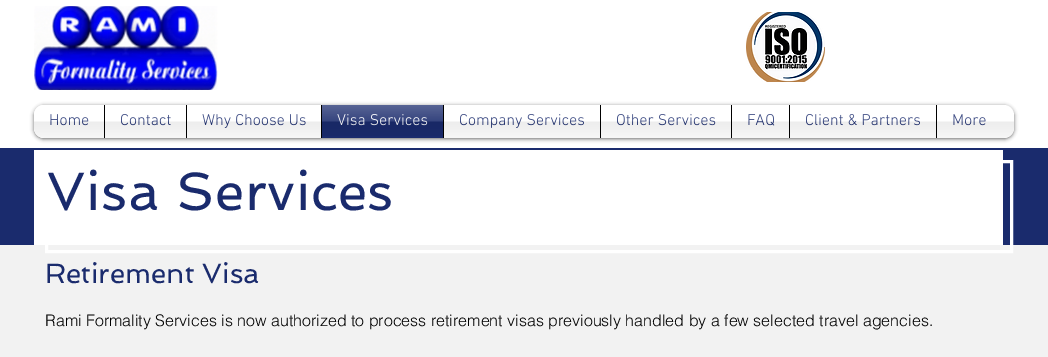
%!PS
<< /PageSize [1048 357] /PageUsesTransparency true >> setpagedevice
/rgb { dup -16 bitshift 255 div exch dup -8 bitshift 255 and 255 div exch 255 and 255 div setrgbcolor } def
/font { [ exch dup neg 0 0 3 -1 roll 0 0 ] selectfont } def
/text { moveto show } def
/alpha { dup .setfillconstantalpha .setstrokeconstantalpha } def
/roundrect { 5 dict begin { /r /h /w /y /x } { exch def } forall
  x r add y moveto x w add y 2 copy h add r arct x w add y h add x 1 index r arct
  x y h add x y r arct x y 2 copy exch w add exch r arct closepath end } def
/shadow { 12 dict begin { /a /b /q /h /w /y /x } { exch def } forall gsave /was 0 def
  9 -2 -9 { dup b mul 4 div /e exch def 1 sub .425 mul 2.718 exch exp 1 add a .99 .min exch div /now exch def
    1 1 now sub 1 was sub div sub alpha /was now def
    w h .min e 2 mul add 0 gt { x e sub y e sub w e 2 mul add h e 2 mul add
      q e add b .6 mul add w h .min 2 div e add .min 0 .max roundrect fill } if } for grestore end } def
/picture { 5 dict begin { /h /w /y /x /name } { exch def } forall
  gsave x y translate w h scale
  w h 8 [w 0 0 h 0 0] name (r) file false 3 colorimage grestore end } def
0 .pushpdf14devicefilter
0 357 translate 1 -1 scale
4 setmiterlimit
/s1 { /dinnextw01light-Light 16 font 16#1A2B6D rgb } def
/s2 { /dinnextw01light-Light 16 font 16#FFFFFF rgb } def
/s3 { /Spinnaker-Regular 28 font 16#1A2B6D rgb } def
/s4 { /helvetica-Light 16 font 16#000000 rgb } def
16#FFFFFF rgb
0 0 1048 357 rectfill
(pic1.raw) 34 6 184 84 picture
(pic2.raw) 746 12 79 70 picture
16#000000 rgb
34 106 980 33 10 2 0.6 shadow
16#FFFFFF rgb
34 105 980 33 10 roundrect fill
(pic3.raw) 34 121 980 17 picture
44 105 moveto 104 105 lineto 104 138 lineto 44 138 lineto 38.5 138 34 133.5 34 128 curveto 34 115 lineto 34 109.5 38.5 105 44 105 curveto closepath fill
s1
(Home) 49 125 text
(pic4.raw) 34 114 70 24 picture
16#FFFFFF rgb
105 121 81 17 rectfill
16#000000 rgb
104 105 1 33 rectfill
s1
(Contact) 120 125 text
(pic5.raw) 105 114 81 24 picture
16#FFFFFF rgb
187 121 134 17 rectfill
16#000000 rgb
186 105 1 33 rectfill
s1
(Why Choose Us) 202 125 text
(pic6.raw) 187 114 134 24 picture
322 105 121 33 rectfill
16#000000 rgb
321 105 1 33 rectfill
s2
(Visa Services) 337 125 text
(pic7.raw) 322 105 121 31 picture
444 121 156 17 rectfill
16#000000 rgb
443 105 1 33 rectfill
s1
(Company Services) 459 125 text
(pic8.raw) 444 114 156 24 picture
16#FFFFFF rgb
601 121 130 17 rectfill
16#000000 rgb
600 105 1 33 rectfill
s1
(Other Services) 616 125 text
(pic9.raw) 601 114 130 24 picture
16#FFFFFF rgb
732 121 57 17 rectfill
16#000000 rgb
731 105 1 33 rectfill
s1
(FAQ) 747 125 text
(pic10.raw) 732 114 57 24 picture
16#FFFFFF rgb
790 121 146 17 rectfill
16#000000 rgb
789 105 1 33 rectfill
s1
(Client & Partners) 805 125 text
(pic11.raw) 790 114 146 24 picture
16#FFFFFF rgb
937 121 64 17 rectfill
16#000000 rgb
936 105 1 33 rectfill
s1
(More) 952 125 text
(pic12.raw) 937 114 64 24 picture
0 148 1048 97 rectfill
16#FFFFFF rgb
34 150 969 95 rectfill
/Spinnaker-Regular 54 font
16#1A2B6D rgb
47 210 moveto 0.5 0 (Visa Services) ashow
16#F2F2F2 rgb
0 245 1048 112 rectfill
16#FFFFFF rgb
3 setlinewidth
46.5 161.5 965 90 rectstroke
s3
(Retirement Visa) 45 283 text
s4
(Rami Formality Services is now authorized to process retirement visas previously handled by a few selected travel agencies.) 45 326 text
.poppdf14devicefilter showpage
